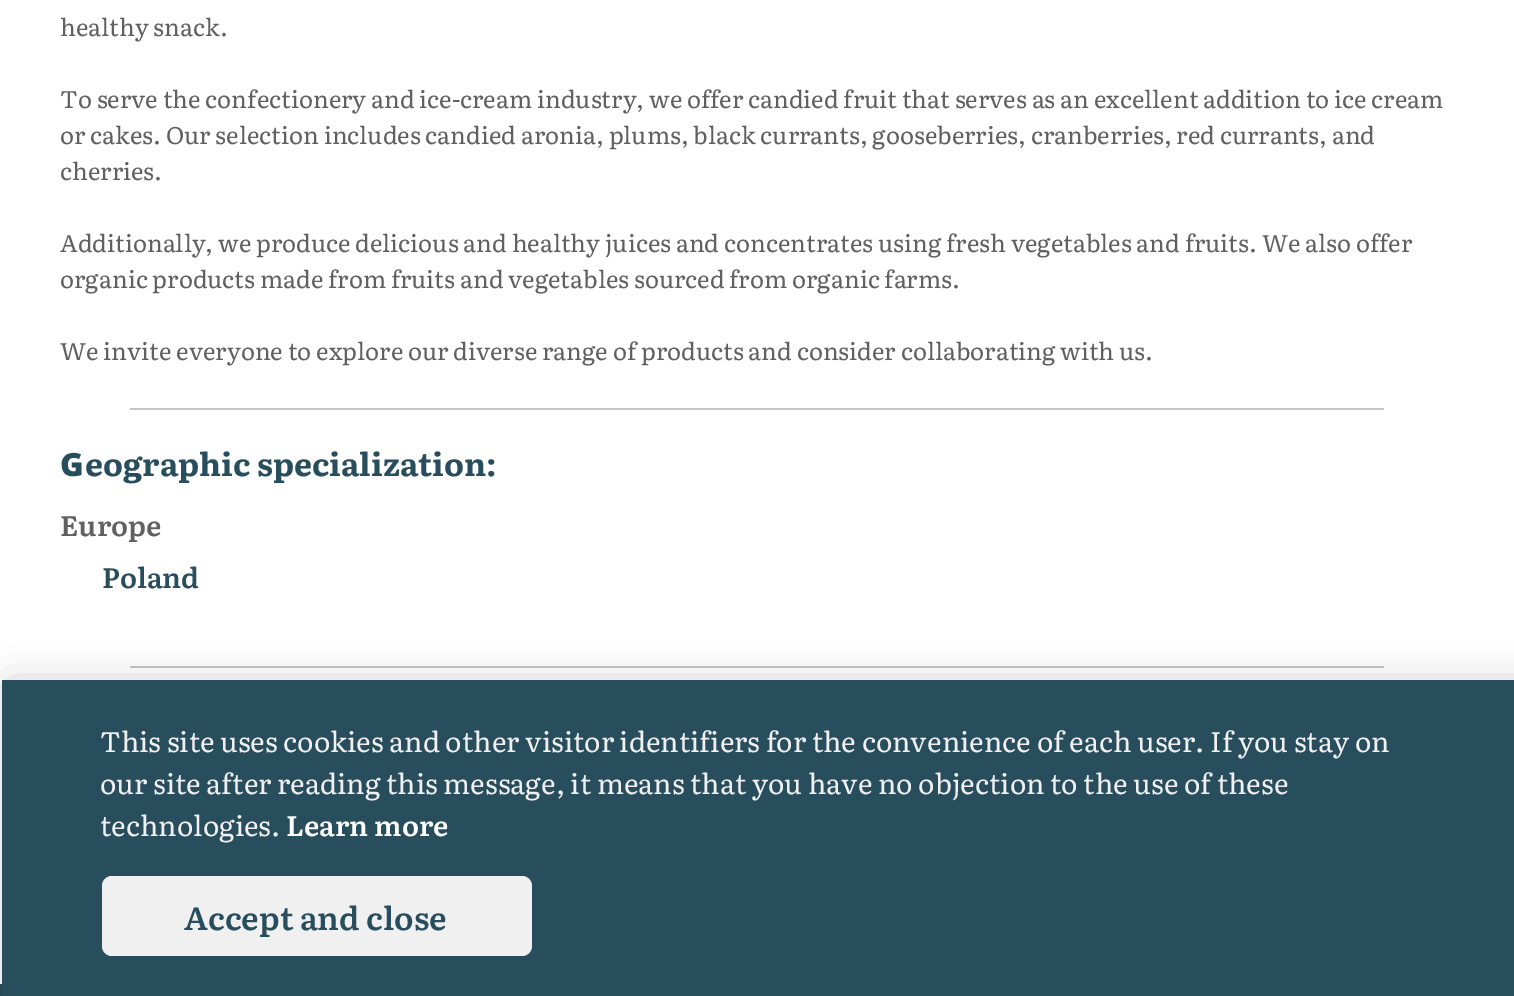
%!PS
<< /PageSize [1514 996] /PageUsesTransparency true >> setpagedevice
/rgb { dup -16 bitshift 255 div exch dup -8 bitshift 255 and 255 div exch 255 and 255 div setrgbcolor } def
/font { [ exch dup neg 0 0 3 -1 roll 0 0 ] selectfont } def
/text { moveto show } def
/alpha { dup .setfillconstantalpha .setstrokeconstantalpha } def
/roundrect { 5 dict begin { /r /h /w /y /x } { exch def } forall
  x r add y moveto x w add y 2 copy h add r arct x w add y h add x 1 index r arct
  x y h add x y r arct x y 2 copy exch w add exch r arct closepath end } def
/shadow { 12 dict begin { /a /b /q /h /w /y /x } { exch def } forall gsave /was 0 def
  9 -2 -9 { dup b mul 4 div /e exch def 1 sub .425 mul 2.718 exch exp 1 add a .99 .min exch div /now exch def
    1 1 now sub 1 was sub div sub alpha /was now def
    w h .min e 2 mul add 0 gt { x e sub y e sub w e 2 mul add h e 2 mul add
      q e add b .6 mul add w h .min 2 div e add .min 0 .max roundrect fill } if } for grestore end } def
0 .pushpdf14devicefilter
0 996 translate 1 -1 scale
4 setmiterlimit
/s1 { /Literata-Regular 24 font 16#606060 rgb } def
/s2 { /NotoSans-Black 32 font 16#284D5D rgb } def
/s3 { /Literata-Bold 32 font 16#284D5D rgb } def
/s4 { /Literata-SemiBold 28 font 16#606060 rgb } def
/s5 { /Literata-SemiBold 28 font 16#284D5D rgb } def
/s6 { /Literata-Regular 28 font 16#F0F0F0 rgb } def
/s7 { /Literata-SemiBold 28 font 16#FFFFFF rgb } def
/s8 { /Literata-SemiBold 32 font 16#284D5D rgb } def
16#FFFFFF rgb
0 0 1514 996 rectfill
s1
(healthy snack.) 60 36 text
(To serve the confectionery and ice-cream industry, we offer candied fruit that serves as an excellent addition to ice cream) 60 108 text
(or cakes. Our selection includes candied aronia, plums, black currants, gooseberries, cranberries, red currants, and) 60 144 text
(cherries.) 60 180 text
(Additionally, we produce delicious and healthy juices and concentrates using fresh vegetables and fruits. We also offer) 60 252 text
(organic products made from fruits and vegetables sourced from organic farms.) 60 288 text
(We invite everyone to explore our diverse range of products and consider collaborating with us.) 60 360 text
16#C4C4C4 rgb
130 408 1254 2 rectfill
s2
(G) 60 476 text
s3
(eographic specialization:) 85 476 text
s4
(Europe) 60 536 text
s5
(Poland) 102 588 text
16#C4C4C4 rgb
130 666 1254 2 rectfill
16#284D5D rgb
0 984 2 12 rectfill
16#000000 rgb
10 688 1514 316 0 20 0.25 shadow
16#284D5D rgb
2 680 1512 316 rectfill
s6
(This site uses cookies and other visitor identifiers for the convenience of each user. If you stay on) 100 752 text
(our site after reading this message, it means that you have no objection to the use of these) 100 794 text
(technologies.) 100 836 text
s7
(Learn more) 286 836 text
16#F0F0F0 rgb
102 876 430 80 10 roundrect fill
s8
(Accept and close) 184 930 text
.poppdf14devicefilter showpage
